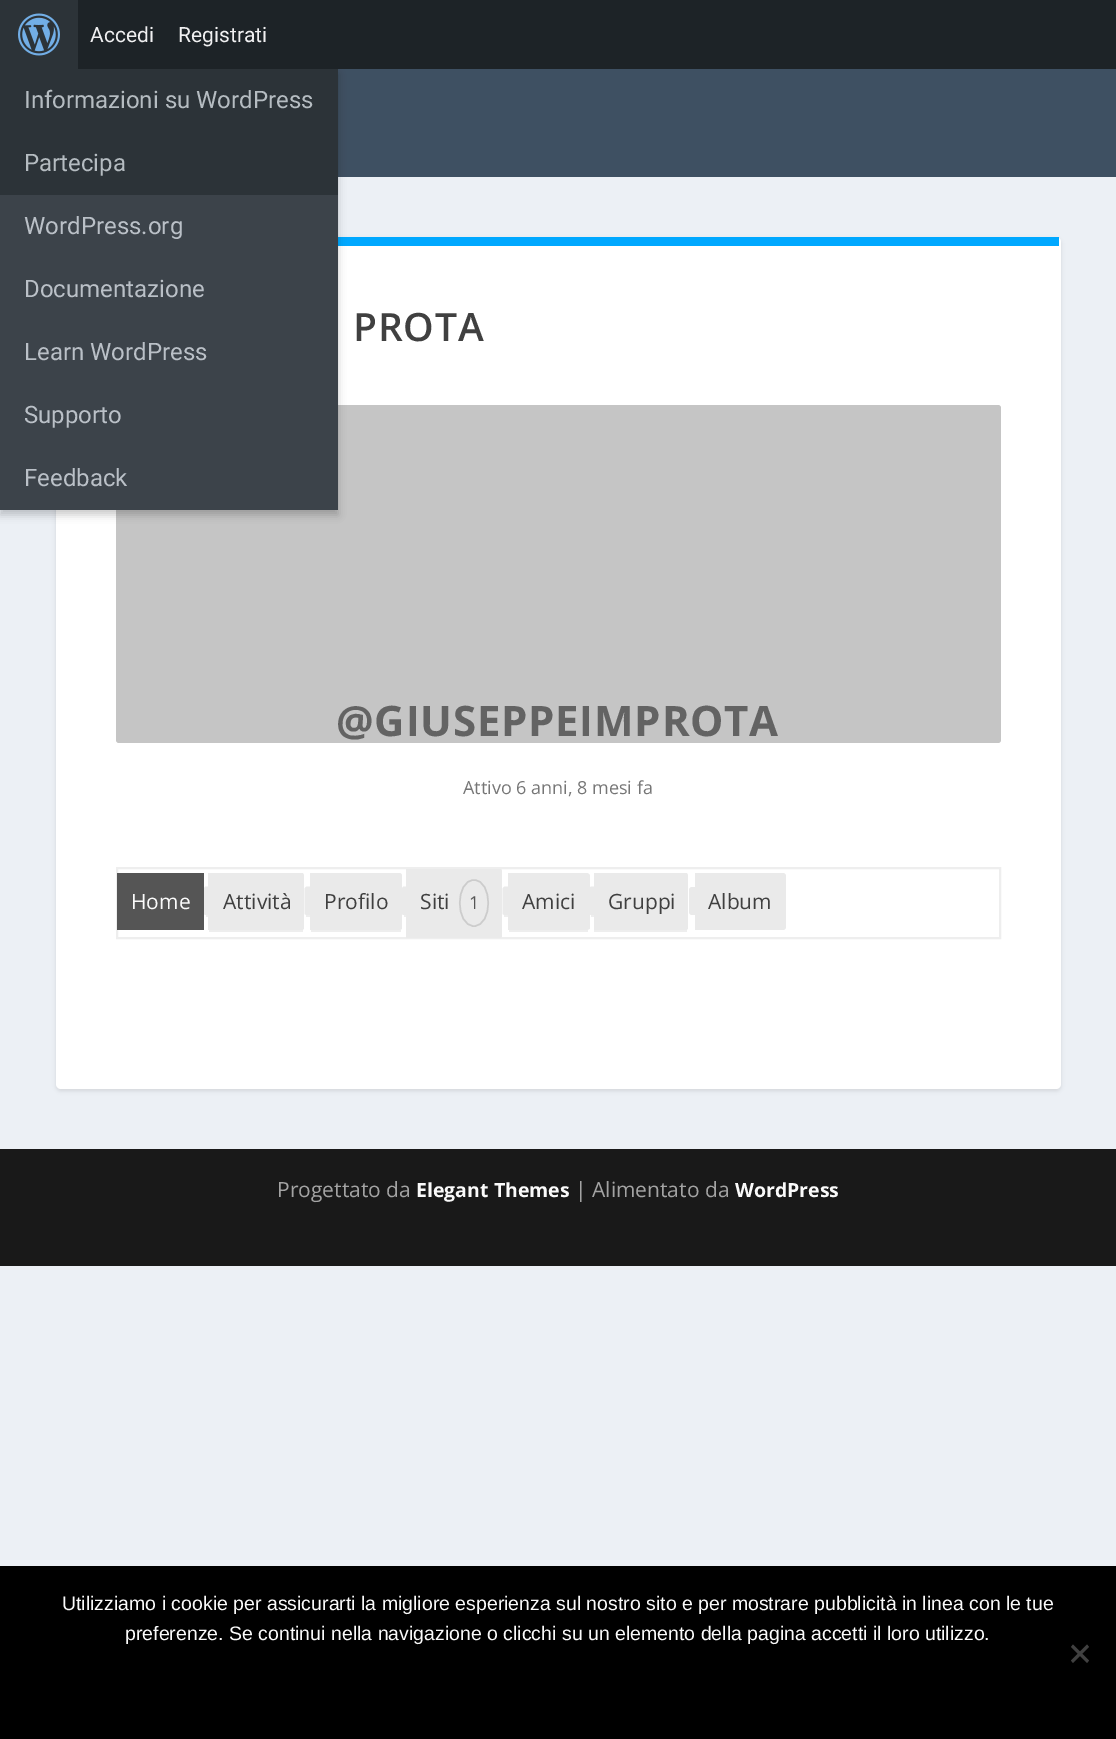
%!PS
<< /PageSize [1116 1739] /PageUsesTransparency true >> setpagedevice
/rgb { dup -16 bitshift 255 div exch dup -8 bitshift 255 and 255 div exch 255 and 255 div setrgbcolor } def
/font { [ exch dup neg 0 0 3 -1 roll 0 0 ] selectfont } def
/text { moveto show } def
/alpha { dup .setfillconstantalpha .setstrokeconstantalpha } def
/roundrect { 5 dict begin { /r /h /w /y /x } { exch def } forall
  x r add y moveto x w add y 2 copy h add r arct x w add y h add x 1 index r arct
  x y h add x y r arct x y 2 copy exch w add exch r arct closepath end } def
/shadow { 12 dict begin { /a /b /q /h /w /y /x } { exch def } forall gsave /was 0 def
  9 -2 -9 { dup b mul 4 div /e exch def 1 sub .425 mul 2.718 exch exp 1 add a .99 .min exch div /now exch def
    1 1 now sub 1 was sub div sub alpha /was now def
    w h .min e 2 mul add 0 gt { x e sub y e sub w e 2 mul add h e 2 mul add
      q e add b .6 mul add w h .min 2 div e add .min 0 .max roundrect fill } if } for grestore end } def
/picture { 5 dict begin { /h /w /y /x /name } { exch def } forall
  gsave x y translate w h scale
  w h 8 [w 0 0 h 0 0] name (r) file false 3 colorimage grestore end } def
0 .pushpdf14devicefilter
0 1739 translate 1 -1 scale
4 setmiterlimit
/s1 { /Roboto-Regular 21 font 16#F0F0F1 rgb } def
/s2 { /Roboto-Regular 24 font 16#B5BCC1 rgb } def
/s3 { /Roboto-Regular 24 font 16#BAC0C7 rgb } def
/s4 { /OpenSans-Regular 18 font 16#767676 rgb } def
/s5 { /OpenSans-Regular 21 font 16#FAFAFA rgb } def
/s6 { /OpenSans-Regular 21 font 16#404040 rgb } def
/s7 { /OpenSans-Regular 18 font 16#555555 rgb } def
/s8 { /OpenSans-Regular 21 font 16#A3A3A3 rgb } def
/s9 { /OpenSans-Bold 19.5 font 16#FAFAFA rgb } def
/s10 { /LiberationSans-Regular 19.5 font 16#FAFAFA rgb } def
16#ECF0F5 rgb
0 0 1116 1739 rectfill
16#1D2327 rgb
78 0 1038 69 rectfill
s1
(Accedi) 90 42 text
(Registrati) 178 42 text
16#2C3338 rgb
0 0 78 69 rectfill
(pic1.raw) 18 13 42 43 picture
16#3E5062 rgb
338 69 778 108 rectfill
16#000000 rgb
56 239 1005 852 5 2 0.1 shadow
16#FFFFFF rgb
56 237 1005 852 5 roundrect fill
16#00A8FF rgb
338 237 721 9 rectfill
16#C5C5C5 rgb
116 405 885 338 3 roundrect fill
16#000000 rgb
0 74 338 441 0 4 0.2 shadow
16#2C3338 rgb
0 69 338 126 rectfill
s2
(Informazioni su WordPress) 24 108 text
(Partecipa) 24 171 text
16#3C434A rgb
0 195 338 315 rectfill
s3
(WordPress.org) 24 234 text
(Documentazione) 24 297 text
(Learn WordPress) 24 360 text
(Supporto) 24 423 text
(Feedback) 24 486 text
/OpenSans-SemiBold 39 font
16#404040 rgb
353 341 moveto 0.75 0 (PROTA) ashow
/OpenSans-Bold 42 font
16#636363 rgb
336 736 moveto 0.75 0 (@GIUSEPPEIMPROTA) ashow
s4
(Attivo 6 anni, 8 mesi fa) 463 794 text
16#EEEEEE rgb
2 setlinewidth
117 868 883 70 rectstroke
16#555555 rgb
117 873 87 57 rectfill
s5
(Home) 131 909 text
16#EAEAEA rgb
206 886.5 moveto 208.5 886.5 lineto 208.5 915 lineto 206 915 lineto 205 915 204 914.5 204 914 curveto 204 889 lineto 204 887.5 205 886.5 206 886.5 curveto closepath fill
16#EEEEEE rgb
206 915 3 2 rectfill
16#EAEAEA rgb
208 873 moveto 302 873 lineto 303 873 304 874 304 876 curveto 304 928 lineto 304 929 303 930 302 930 curveto 208 930 lineto closepath fill
16#EEEEEE rgb
209 930 94 2 rectfill
s6
(Attività) 223 909 text
16#EAEAEA rgb
307.5 886.5 moveto 310.5 886.5 lineto 310.5 915 lineto 307.5 915 lineto 306 915 304.5 914.5 304.5 913.5 curveto 304.5 889.5 lineto 304.5 888 306 886.5 307.5 886.5 curveto closepath fill
16#EEEEEE rgb
306 915 5 2 rectfill
16#EAEAEA rgb
310 873 moveto 399 873 lineto 401 873 402 874 402 876 curveto 402 928 lineto 402 929 401 930 399 930 curveto 310 930 lineto closepath fill
16#EEEEEE rgb
311 930 90 2 rectfill
s6
(Profilo) 324 909 text
16#EAEAEA rgb
404 886.5 moveto 406.5 886.5 lineto 406.5 915 lineto 404 915 lineto 403 915 402 914.5 402 914 curveto 402 889 lineto 402 887.5 403 886.5 404 886.5 curveto closepath fill
16#EEEEEE rgb
404 915 3 2 rectfill
gsave
117 869 882 69 rectclip
16#EAEAEA rgb
406 868 moveto 500 868 lineto 501 868 502 870 502 872 curveto 502 936 lineto 502 937 501 938 500 938 curveto 406 938 lineto closepath fill
grestore
s6
(Siti) 420 909 text
16#CCCCCC rgb
1.5 setlinewidth
474 880 moveto 493 880 493 926 474 926 curveto 455 926 455 880 474 880 curveto closepath stroke
s7
(1) 469 909 text
16#EAEAEA rgb
505.5 886.5 moveto 508.5 886.5 lineto 508.5 915 lineto 505.5 915 lineto 504 915 502.5 914.5 502.5 913.5 curveto 502.5 889.5 lineto 502.5 888 504 886.5 505.5 886.5 curveto closepath fill
16#EEEEEE rgb
504 915 5 2 rectfill
16#EAEAEA rgb
508 873 moveto 586 873 lineto 588 873 590 874 590 876 curveto 590 928 lineto 590 929 588 930 586 930 curveto 508 930 lineto closepath fill
16#EEEEEE rgb
509 930 79 2 rectfill
s6
(Amici) 522 909 text
16#EAEAEA rgb
592 886.5 moveto 594 886.5 lineto 594 915 lineto 592 915 lineto 590.5 915 589.5 914.5 589.5 914 curveto 589.5 889 lineto 589.5 887.5 590.5 886.5 592 886.5 curveto closepath fill
16#EEEEEE rgb
591 915 3 2 rectfill
16#EAEAEA rgb
594 873 moveto 686 873 lineto 687 873 688 874 688 876 curveto 688 928 lineto 688 929 687 930 686 930 curveto 594 930 lineto closepath fill
16#EEEEEE rgb
594 930 93 2 rectfill
s6
(Gruppi) 608 909 text
16#EAEAEA rgb
692 887 moveto 695 887 lineto 695 915 lineto 692 915 lineto 690.5 915 689 913.5 689 912 curveto 689 890 lineto 689 888.5 690.5 887 692 887 curveto closepath fill
695 873 moveto 783 873 lineto 784.5 873 786 874.5 786 876 curveto 786 927 lineto 786 928.5 784.5 930 783 930 curveto 695 930 lineto closepath fill
s6
(Album) 708 909 text
16#191919 rgb
0 1149 1116 117 rectfill
s8
(Progettato da) 277 1197 text
s9
(Elegant Themes) 416 1197 text
s8
(| Alimentato da) 575 1197 text
s9
(WordPress) 735 1197 text
16#000000 rgb
0 1566 1116 173 rectfill
s10
(Utilizziamo i cookie per assicurarti la migliore esperienza sul nostro sito e per mostrare pubblicità in linea con le tue) 62 1610 text
(preferenze. Se continui nella navigazione o clicchi su un elemento della pagina accetti il loro utilizzo.) 125 1640 text
16#404040 rgb
1087 1644.5 moveto 1089 1647 lineto 1073 1663 lineto 1071 1660.5 lineto closepath fill
1071 1647 moveto 1073 1644.5 lineto 1089 1660.5 lineto 1087 1663 lineto closepath fill
.poppdf14devicefilter showpage
